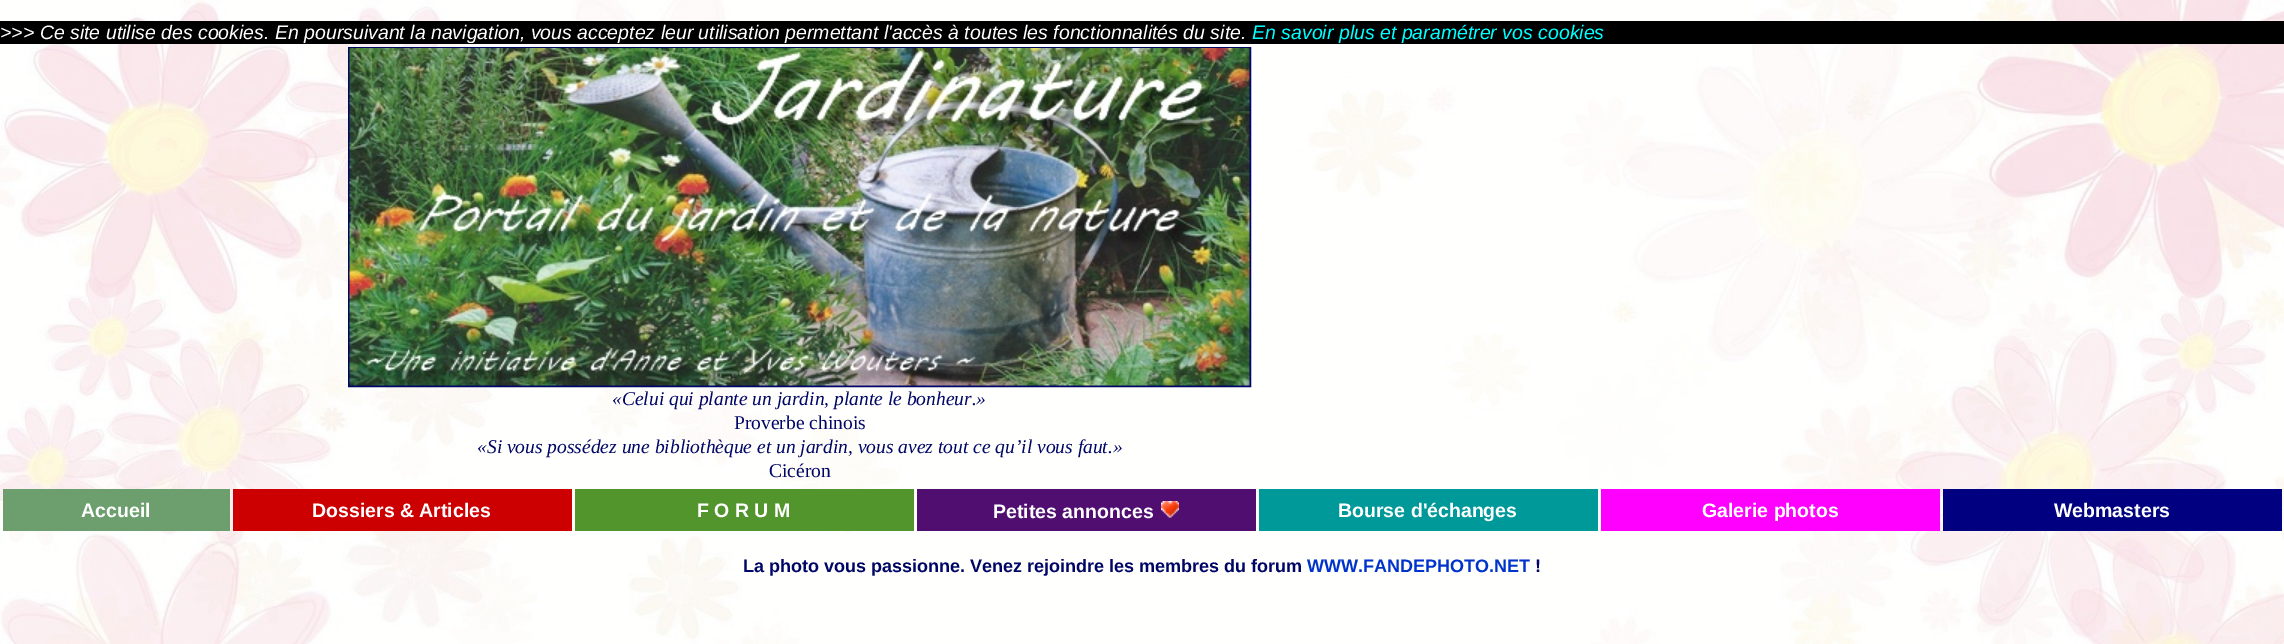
%!PS
<< /PageSize [2284 644] >> setpagedevice
/rgb { dup -16 bitshift 255 div exch dup -8 bitshift 255 and 255 div exch 255 and 255 div setrgbcolor } def
/font { [ exch dup neg 0 0 3 -1 roll 0 0 ] selectfont } def
/text { moveto show } def
/picture { 5 dict begin { /h /w /y /x /name } { exch def } forall
  gsave x y translate w h scale
  w h 8 [w 0 0 h 0 0] name (r) file false 3 colorimage grestore end } def
0 644 translate 1 -1 scale
4 setmiterlimit
/s1 { /LiberationSans-Italic 19.5 font 16#FFFFFF rgb } def
/s2 { /LiberationSans-Italic 19.5 font 16#00FFFF rgb } def
/s3 { /LiberationSerif-Italic 19.5 font 16#000666 rgb } def
/s4 { /LiberationSerif-Regular 19.5 font 16#000666 rgb } def
/s5 { /LiberationSans-Bold 19.5 font 16#FFFFFF rgb } def
/s6 { /LiberationSans-Bold 18 font 16#000666 rgb } def
/s7 { /LiberationSans-Bold 18 font 16#0033CC rgb } def
16#FFFFFF rgb
0 0 2284 644 rectfill
(pic1.raw) 0 0 2284 644 picture
16#000000 rgb
0 21 2284 23 rectfill
s1
(>>> Ce site utilise des cookies. En poursuivant la navigation, vous acceptez leur utilisation permettant l'accès à toutes les fonctionnalités du site.) 0 39 text
s2
(En savoir plus et paramétrer vos cookies) 1252 39 text
16#000666 rgb
2 setlinewidth
349 48 901 338 rectstroke
(pic2.raw) 349 48 901 338 picture
s3
(«Celui qui plante un jardin, plante le bonheur.») 612 405 text
s4
(Proverbe chinois) 734 429 text
s3
(«Si vous possédez une bibliothèque et un jardin, vous avez tout ce qu’il vous faut.») 477 453 text
s4
(Cicéron) 769 477 text
16#6C9F6D rgb
3 489 227 42 rectfill
s5
(Accueil) 81 517 text
16#CC0000 rgb
233 489 339 42 rectfill
s5
(Dossiers & Articles) 312 517 text
16#52952D rgb
575 489 339 42 rectfill
s5
(F O R U M) 697 517 text
16#500E70 rgb
917 489 339 42 rectfill
s5
(Petites annonces) 993 518 text
(pic3.raw) 1161 501 18 17 picture
16#009999 rgb
1259 489 339 42 rectfill
s5
(Bourse d'échanges) 1338 517 text
16#FF00FF rgb
1601 489 339 42 rectfill
s5
(Galerie photos) 1702 517 text
16#000080 rgb
1943 489 339 42 rectfill
s5
(Webmasters) 2054 517 text
s6
(La photo vous passionne. Venez rejoindre les membres du forum) 743 572 text
s7
(WWW.FANDEPHOTO.NET) 1307 572 text
s6
(!) 1535 572 text
showpage
